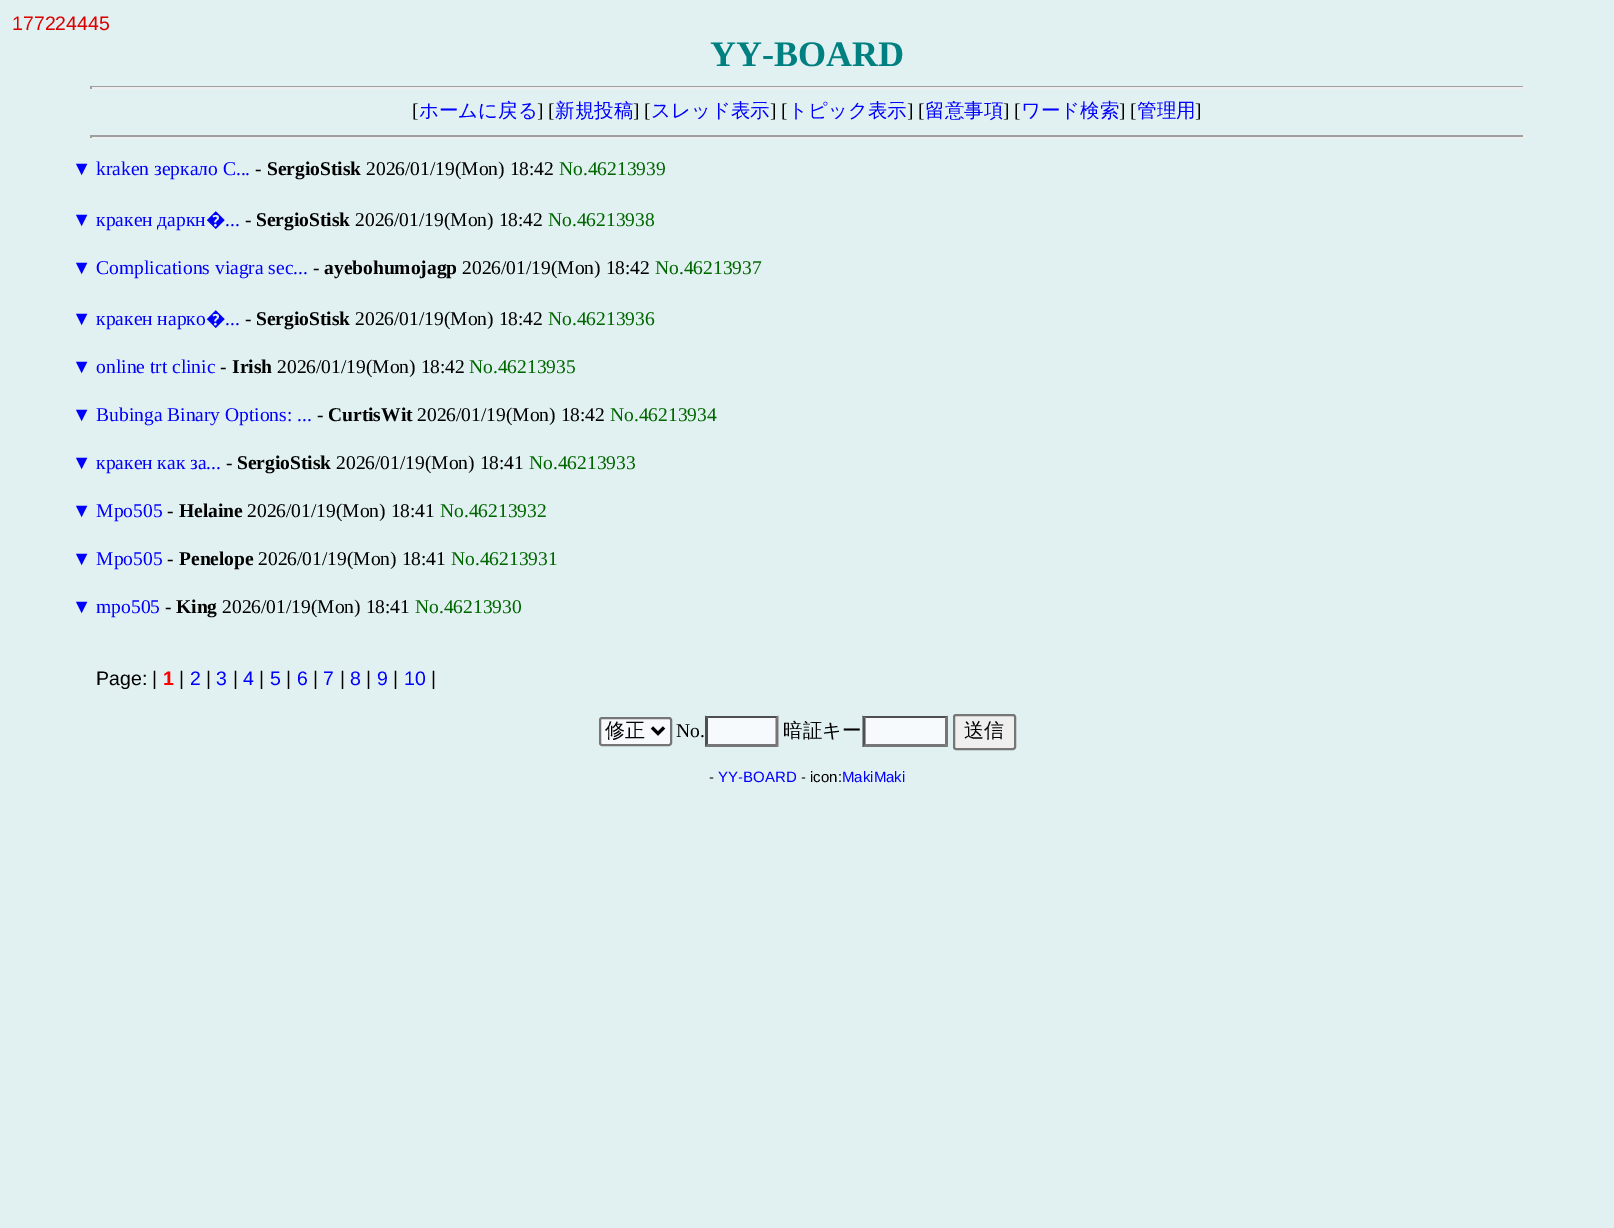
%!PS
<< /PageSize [1614 1228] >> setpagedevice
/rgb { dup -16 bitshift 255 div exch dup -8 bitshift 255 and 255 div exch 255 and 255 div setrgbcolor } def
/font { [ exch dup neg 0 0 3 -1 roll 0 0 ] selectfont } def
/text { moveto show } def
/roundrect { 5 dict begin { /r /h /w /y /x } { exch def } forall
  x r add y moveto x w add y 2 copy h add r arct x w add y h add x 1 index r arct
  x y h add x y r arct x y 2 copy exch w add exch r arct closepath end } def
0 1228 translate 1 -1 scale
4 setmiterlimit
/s1 { /LiberationSans-Regular 19.5 font 16#DD0000 rgb } def
/s2 { /LiberationSerif-Bold 36 font 16#008080 rgb } def
/s3 { /LiberationSerif-Regular 19.5 font 16#000000 rgb } def
/s4 { /WenQuanYiZenHei-Medium 19.5 font 16#0000FF rgb } def
/s5 { /LiberationSerif-Regular 19.5 font 16#0000FF rgb } def
/s6 { /LiberationSerif-Bold 19.5 font 16#000000 rgb } def
/s7 { /LiberationSerif-Regular 19.5 font 16#006600 rgb } def
/s8 { /NotoSans-Regular 19.5 font 16#0000FF rgb } def
/s9 { /LiberationSans-Regular 19.5 font 16#000000 rgb } def
/s10 { /LiberationSans-Bold 19.5 font 16#FF0000 rgb } def
/s11 { /LiberationSans-Regular 19.5 font 16#0000FF rgb } def
/s12 { /WenQuanYiZenHei-Medium 20 font 16#000000 rgb } def
/s13 { /WenQuanYiZenHei-Medium 19.5 font 16#000000 rgb } def
/s14 { /LiberationSans-Regular 15 font 16#000000 rgb } def
/s15 { /LiberationSans-Regular 15 font 16#0000FF rgb } def
16#E1F0F0 rgb
0 0 1614 1228 rectfill
s1
(177224445) 12 30 text
s2
(YY-BOARD) 710 66 text
16#9F9F9F rgb
90 86 1434 1 rectfill
16#EEEEEE rgb
1523 86 2 3 rectfill
90 87 1434 2 rectfill
16#9F9F9F rgb
90 86 2 3 rectfill
s3
([) 412 117 text
s4
(ホームに戻る) 419 117 text
s3
(] [) 537 117 text
s4
(新規投稿) 555 117 text
s3
(] [) 633 117 text
s4
(スレッド表示) 651 117 text
s3
(] [) 770 117 text
s4
(トピック表示) 788 117 text
s3
(] [) 907 117 text
s4
(留意事項) 925 117 text
s3
(] [) 1003 117 text
s4
(ワード検索) 1021 117 text
s3
(] [) 1119 117 text
s4
(管理用) 1137 117 text
s3
(]) 1195 117 text
16#9F9F9F rgb
90 135 1434 2 rectfill
16#EEEEEE rgb
1523 135 2 3 rectfill
90 137 1434 2 rectfill
16#9F9F9F rgb
90 135 2 3 rectfill
s5
(▼ kraken зеркало С...) 72 175 text
s3
(-) 255 175 text
s6
(SergioStisk) 267 175 text
s3
(2026/01/19\(Mon\) 18:42) 366 175 text
s7
(No.46213939) 559 175 text
s5
(▼ кракен даркн) 72 226 text
s8
(�) 206 226 text
s3
(-) 245 226 text
s6
(SergioStisk) 256 226 text
s3
(2026/01/19\(Mon\) 18:42) 355 226 text
s7
(No.46213938) 548 226 text
s5
(...) 225 226 text
(▼ Complications viagra sec...) 72 274 text
s3
(-) 313 274 text
s6
(ayebohumojagp) 324 274 text
s3
(2026/01/19\(Mon\) 18:42) 462 274 text
s7
(No.46213937) 655 274 text
s5
(▼ кракен нарко) 72 325 text
s8
(�) 206 325 text
s3
(-) 245 325 text
s6
(SergioStisk) 256 325 text
s3
(2026/01/19\(Mon\) 18:42) 355 325 text
s7
(No.46213936) 548 325 text
s5
(...) 225 325 text
(▼ online trt clinic) 72 373 text
s3
(-) 220 373 text
s6
(Irish) 232 373 text
s3
(2026/01/19\(Mon\) 18:42) 277 373 text
s7
(No.46213935) 469 373 text
s5
(▼ Bubinga Binary Options: ...) 72 421 text
s3
(-) 317 421 text
s6
(CurtisWit) 328 421 text
s3
(2026/01/19\(Mon\) 18:42) 417 421 text
s7
(No.46213934) 610 421 text
s5
(▼ кракен как за...) 72 469 text
s3
(-) 226 469 text
s6
(SergioStisk) 237 469 text
s3
(2026/01/19\(Mon\) 18:41) 336 469 text
s7
(No.46213933) 529 469 text
s5
(▼ Mpo505) 72 517 text
s3
(-) 167 517 text
s6
(Helaine) 179 517 text
s3
(2026/01/19\(Mon\) 18:41) 247 517 text
s7
(No.46213932) 440 517 text
s5
(▼ Mpo505) 72 565 text
s3
(-) 167 565 text
s6
(Penelope) 179 565 text
s3
(2026/01/19\(Mon\) 18:41) 258 565 text
s7
(No.46213931) 451 565 text
s5
(▼ mpo505) 72 613 text
s3
(-) 165 613 text
s6
(King) 176 613 text
s3
(2026/01/19\(Mon\) 18:41) 222 613 text
s7
(No.46213930) 415 613 text
s9
(Page: |) 96 685 text
s10
(1) 163 685 text
s9
(|) 179 685 text
s11
(2) 190 685 text
s9
(|) 206 685 text
s11
(3) 216 685 text
s9
(|) 233 685 text
s11
(4) 243 685 text
s9
(|) 259 685 text
s11
(5) 270 685 text
s9
(|) 286 685 text
s11
(6) 297 685 text
s9
(|) 313 685 text
s11
(7) 323 685 text
s9
(|) 340 685 text
s11
(8) 350 685 text
s9
(|) 366 685 text
s11
(9) 377 685 text
s9
(|) 393 685 text
s11
(10) 404 685 text
s9
(|) 431 685 text
16#F7FAFD rgb
600 718 71 27 2 roundrect gsave fill grestore
16#767676 rgb
2 setlinewidth
stroke
16#000000 rgb
3 setlinewidth
652 727.5 moveto 658 733.5 lineto 664 727.5 lineto stroke
s12
(修正) 605 737 text
s3
(No.) 676 737 text
16#F7FAFD rgb
705 716 74 31 rectfill
16#4F4F4F rgb
705 716 moveto 778 716 lineto 776 718 lineto 708 718 lineto closepath fill
16#767676 rgb
778.5 715.5 moveto 778.5 747 lineto 775.5 744 lineto 775.5 718.5 lineto closepath fill
778 747 moveto 705 747 lineto 708 744 lineto 776 744 lineto closepath fill
16#4F4F4F rgb
705 747 moveto 705 715.5 lineto 708 718.5 lineto 708 744 lineto closepath fill
s13
(暗証キー) 783 737 text
16#F7FAFD rgb
863 716 85 31 rectfill
16#4F4F4F rgb
862 716 moveto 948 716 lineto 945 718 lineto 866 718 lineto closepath fill
16#767676 rgb
948 715.5 moveto 948 747 lineto 945 744 lineto 945 718.5 lineto closepath fill
948 747 moveto 862 747 lineto 866 744 lineto 945 744 lineto closepath fill
16#4F4F4F rgb
862.5 747 moveto 862.5 715.5 lineto 865.5 718.5 lineto 865.5 744 lineto closepath fill
16#EFEFEF rgb
954 715 61 34 2 roundrect gsave fill grestore
16#767676 rgb
2 setlinewidth
stroke
s12
(送信) 964 737 text
s14
(-) 709 782 text
s15
(YY-BOARD) 718 782 text
s14
(- icon:) 801 782 text
s15
(MakiMaki) 842 782 text
showpage
